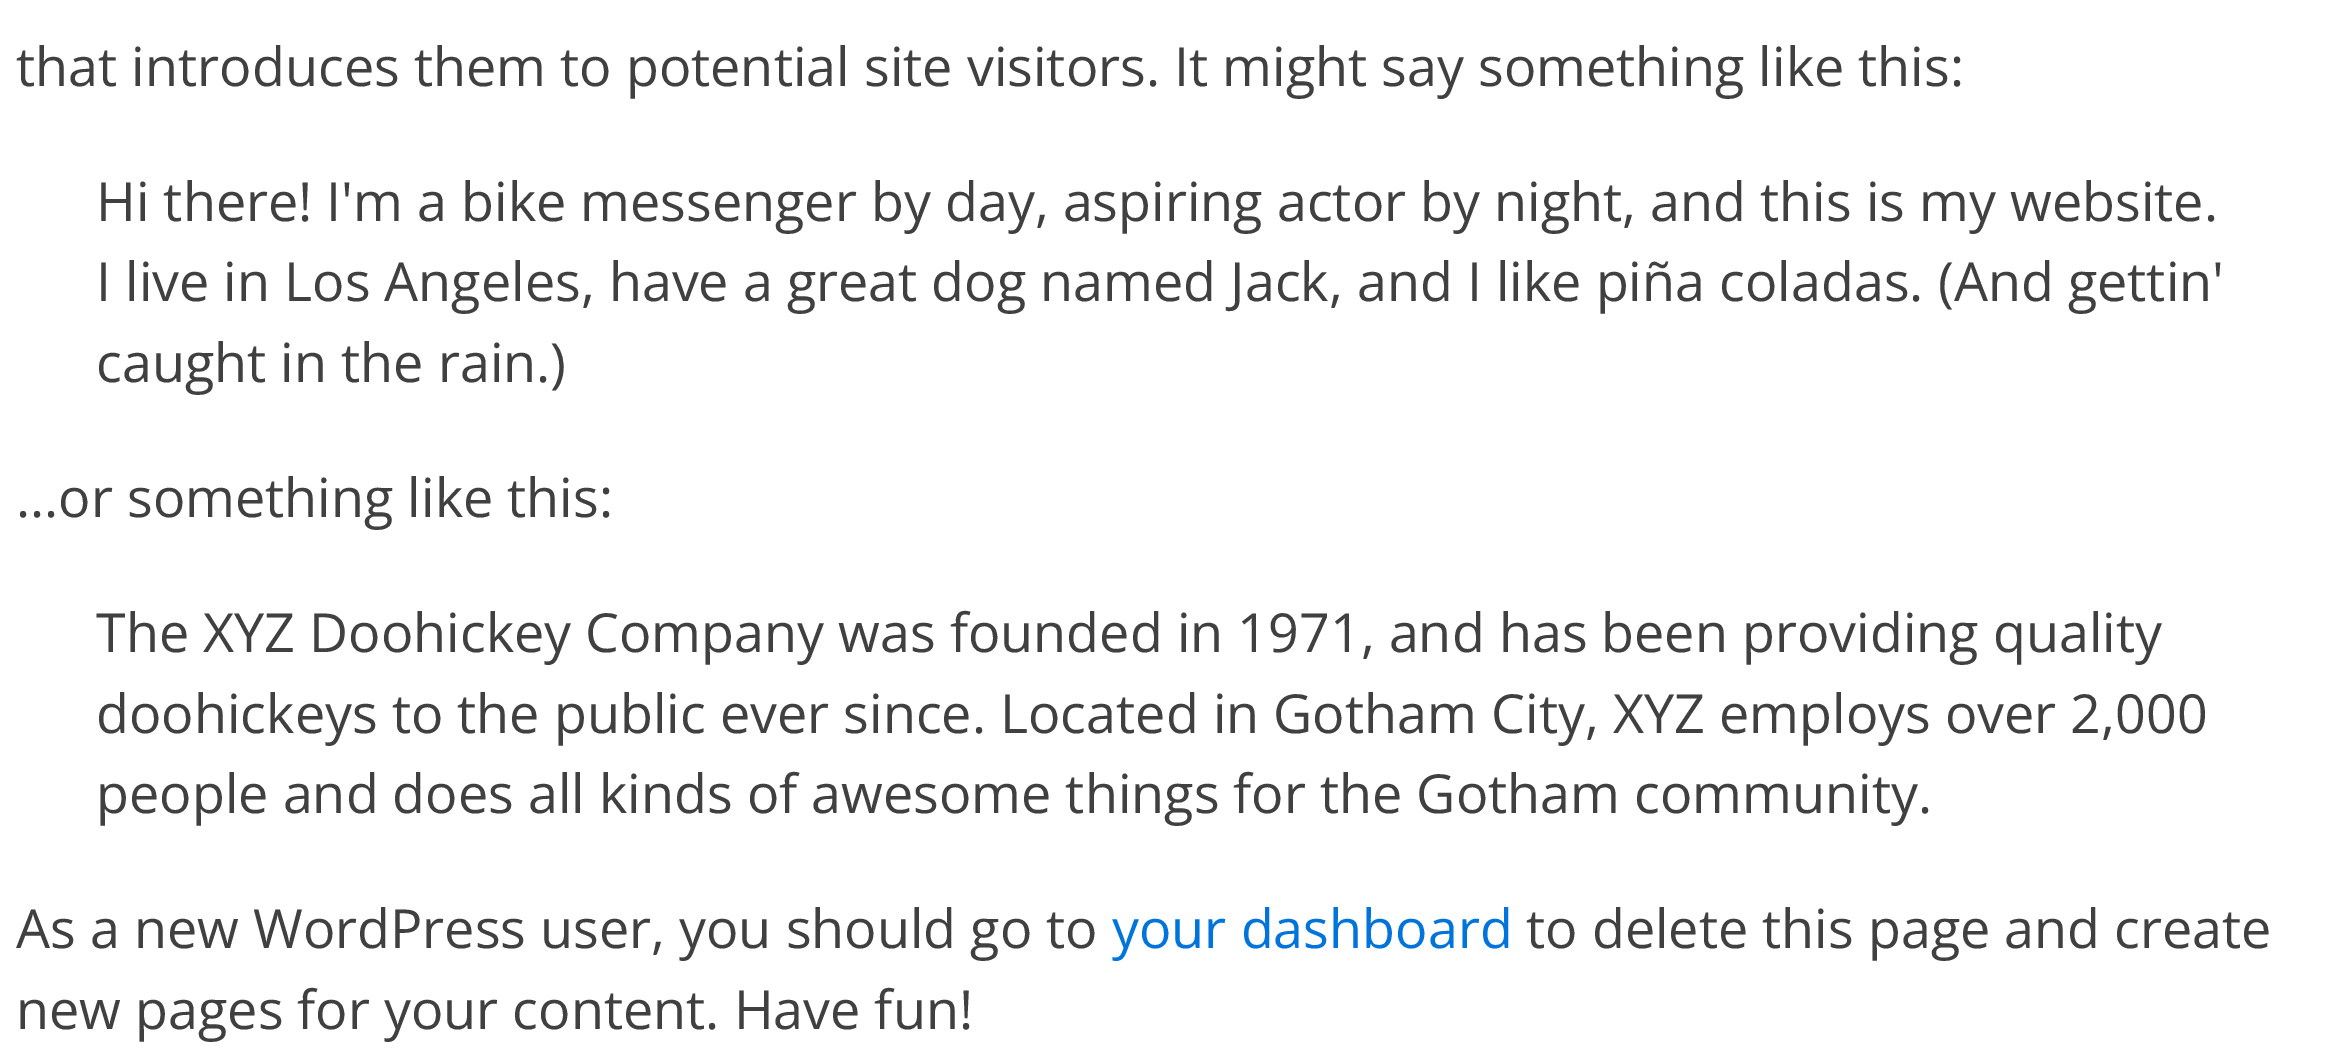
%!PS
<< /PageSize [2329 1048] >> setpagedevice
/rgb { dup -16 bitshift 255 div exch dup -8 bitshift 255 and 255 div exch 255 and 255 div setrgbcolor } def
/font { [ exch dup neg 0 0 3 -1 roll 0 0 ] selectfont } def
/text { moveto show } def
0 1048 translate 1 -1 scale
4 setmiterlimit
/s1 { /OpenSans-Regular 53.9 font 16#404040 rgb } def
/s2 { /OpenSans-Regular 53.9 font 16#0074DB rgb } def
16#FFFFFF rgb
0 0 2329 1048 rectfill
s1
(that introduces them to potential site visitors. It might say something like this:) 16 86 text
(Hi there! I'm a bike messenger by day, aspiring actor by night, and this is my website.) 96 221 text
(I live in Los Angeles, have a great dog named Jack, and I like piña coladas. \(And gettin') 96 301 text
(caught in the rain.\)) 96 382 text
(...or something like this:) 16 517 text
(The XYZ Doohickey Company was founded in 1971, and has been providing quality) 96 652 text
(doohickeys to the public ever since. Located in Gotham City, XYZ employs over 2,000) 96 733 text
(people and does all kinds of awesome things for the Gotham community.) 96 813 text
(As a new WordPress user, you should go to) 16 948 text
s2
(your dashboard) 1112 948 text
s1
(to delete this page and create) 1526 948 text
(new pages for your content. Have fun!) 16 1029 text
showpage
